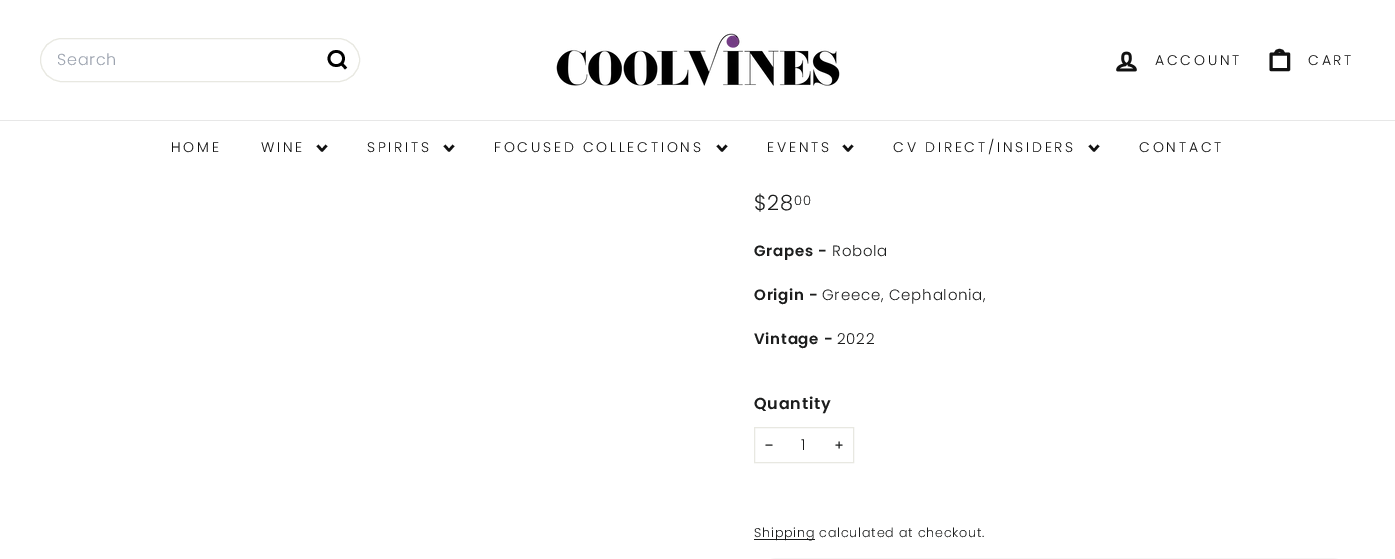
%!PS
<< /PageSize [1395 559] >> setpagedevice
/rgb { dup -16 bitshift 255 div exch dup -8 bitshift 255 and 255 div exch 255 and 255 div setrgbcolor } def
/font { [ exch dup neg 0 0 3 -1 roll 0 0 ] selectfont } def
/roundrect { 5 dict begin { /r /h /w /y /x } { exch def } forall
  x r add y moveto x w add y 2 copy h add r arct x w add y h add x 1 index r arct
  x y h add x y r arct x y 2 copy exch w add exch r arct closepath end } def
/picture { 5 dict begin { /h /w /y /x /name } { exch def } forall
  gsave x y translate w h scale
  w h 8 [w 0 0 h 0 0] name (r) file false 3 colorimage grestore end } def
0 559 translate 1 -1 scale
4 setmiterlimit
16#FFFFFF rgb
0 0 1395 559 rectfill
16#E8E8E1 rgb
40.5 38.5 319 43 21.5 roundrect stroke
/Poppins-Light 16 font
16#9CA3AF rgb
57 65 moveto 0.75 0 (Search) ashow
16#000000 rgb
2.7 setlinewidth
1 setlinejoin
343.5 58.5 moveto 343.5 68 329 68 329 58.5 curveto 329 49 343.5 49 343.5 58.5 curveto 346 68.5 moveto 341.5 63.5 lineto stroke
(pic1.raw) 556 33 284 53 picture
(pic2.raw) 1116 51 21 21 picture
/Poppins-Light 14 font
16#111111 rgb
1155 65 moveto 2.75 0 (ACCOUNT) ashow
3 setlinewidth
1275.5 54 moveto 1275.5 49 1283.5 49 1283.5 54 curveto 1271 54 moveto 1288.5 54 lineto 1288.5 69.5 lineto 1271 69.5 lineto closepath stroke
1308 65 moveto 2.75 0 (CART) ashow
16#E7E7E7 rgb
0 120 1395 1 rectfill
16#111111 rgb
171 152 moveto 2.75 0 (HOME) ashow
261 152 moveto 2.75 0 (WINE) ashow
2.5 setlinewidth
317.5 145.5 moveto 322 150.5 lineto 326.5 145.5 lineto stroke
367 152 moveto 2.75 0 (SPIRITS) ashow
444.5 145.5 moveto 449 150.5 lineto 453.5 145.5 lineto stroke
494 152 moveto 2.75 0 (FOCUSED COLLECTIONS) ashow
717.5 145.5 moveto 722 150.5 lineto 726.5 145.5 lineto stroke
767 152 moveto 2.75 0 (EVENTS) ashow
843.5 145.5 moveto 848 150.5 lineto 852.5 145.5 lineto stroke
893 152 moveto 2.75 0 (CV DIRECT/INSIDERS) ashow
1089.5 145.5 moveto 1094 150.5 lineto 1098.5 145.5 lineto stroke
1139 152 moveto 2.75 0 (CONTACT) ashow
/Poppins-Light 21 font
16#1C1D1D rgb
754 210 moveto 0.75 0 ($28) ashow
/Poppins-Light 13 font
794 205 moveto 0.75 0 (00) ashow
/Poppins-SemiBold 15 font
754 256 moveto 0.75 0 (Grapes -) ashow
/Poppins-Light 15 font
832 256 moveto 0.75 0 (Robola) ashow
/Poppins-SemiBold 15 font
754 300 moveto 0.75 0 (Origin -) ashow
/Poppins-Light 15 font
822 300 moveto 0.75 0 (Greece, Cephalonia,) ashow
/Poppins-SemiBold 15 font
754 344 moveto 0.75 0 (Vintage -) ashow
/Poppins-Light 15 font
837 344 moveto 0.75 0 (2022) ashow
/Poppins-SemiBold 16 font
754 409 moveto 0.75 0 (Quantity) ashow
16#E8E8E1 rgb
1 setlinewidth
0 setlinejoin
754.5 427.5 99 35 rectstroke
16#1C1D1D rgb
1.1 setlinewidth
1 setlinejoin
772.5 445 moveto 765.5 445 lineto stroke
/Poppins-Light 15 font
801 450 moveto 0.75 0 (1) ashow
839 441.5 moveto 839 448.5 lineto 842.5 445 moveto 835.5 445 lineto stroke
754 539 61 1 rectfill
/Poppins-Light 12.75 font
754 537 moveto 0.75 0 (Shipping calculated at checkout.) ashow
16#F6F6F6 rgb
754 558 601 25 24 roundrect fill
showpage
